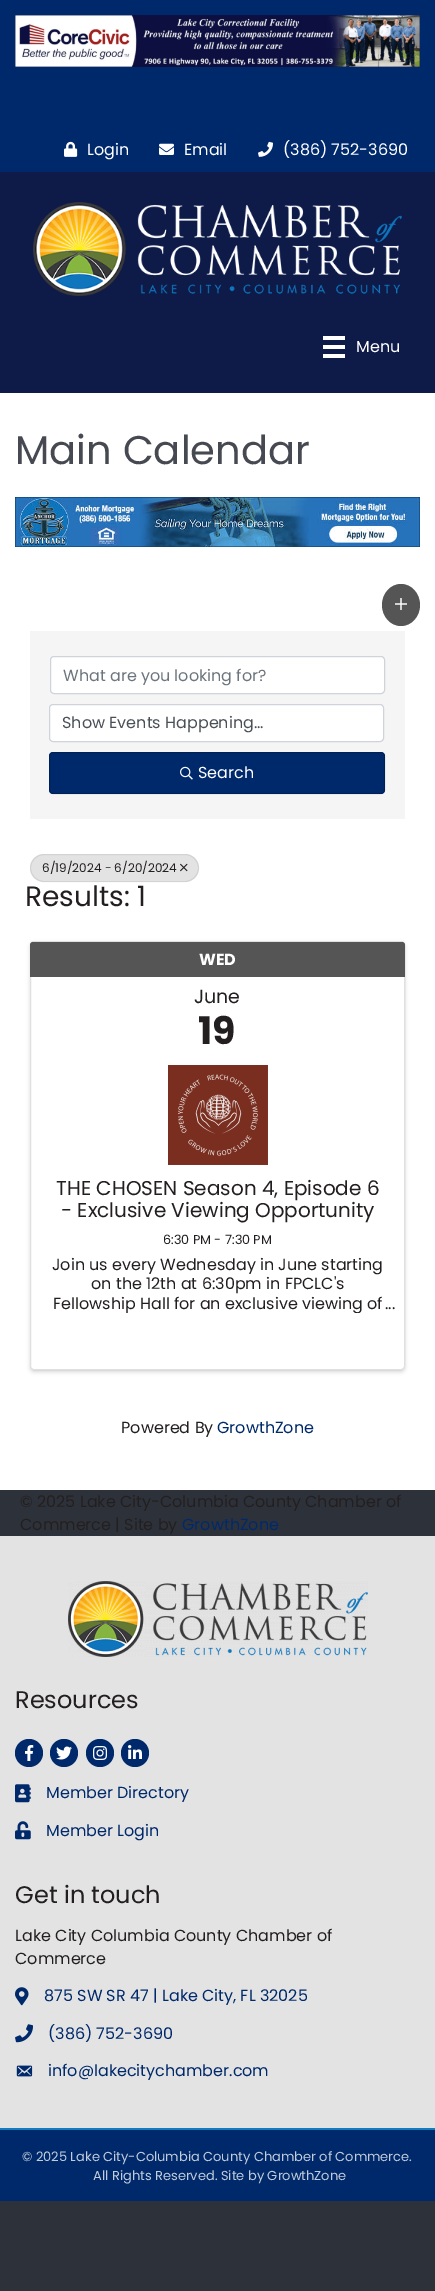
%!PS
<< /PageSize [435 2291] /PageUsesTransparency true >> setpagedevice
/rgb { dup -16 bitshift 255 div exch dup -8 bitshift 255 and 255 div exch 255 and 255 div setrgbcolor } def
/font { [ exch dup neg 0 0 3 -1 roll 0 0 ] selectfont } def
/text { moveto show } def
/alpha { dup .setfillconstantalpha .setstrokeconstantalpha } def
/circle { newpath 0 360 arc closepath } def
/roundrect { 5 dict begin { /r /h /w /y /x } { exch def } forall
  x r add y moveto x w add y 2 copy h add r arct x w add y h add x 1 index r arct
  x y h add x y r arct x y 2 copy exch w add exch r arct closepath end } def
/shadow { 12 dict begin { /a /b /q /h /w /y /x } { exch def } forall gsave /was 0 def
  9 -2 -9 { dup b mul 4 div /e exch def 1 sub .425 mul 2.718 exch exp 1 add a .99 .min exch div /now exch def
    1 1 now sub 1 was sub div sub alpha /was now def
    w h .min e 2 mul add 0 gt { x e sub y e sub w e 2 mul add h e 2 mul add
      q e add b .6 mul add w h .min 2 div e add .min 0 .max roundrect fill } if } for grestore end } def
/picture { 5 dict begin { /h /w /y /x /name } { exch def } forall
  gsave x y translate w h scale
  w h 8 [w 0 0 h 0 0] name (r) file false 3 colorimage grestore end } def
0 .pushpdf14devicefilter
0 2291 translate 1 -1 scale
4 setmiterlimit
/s1 { /Poppins-Regular 16 font 16#FFFFFF rgb } def
/s2 { /Poppins-Regular 40 font 16#464951 rgb } def
/s3 { /Poppins-Regular 16 font 16#6C757D rgb } def
/s4 { /Poppins-Regular 16 font 16#495057 rgb } def
/s5 { /Poppins-Regular 12 font 16#231F20 rgb } def
/s6 { /Poppins-Regular 28 font 16#231F20 rgb } def
/s7 { /Poppins-Bold 16 font 16#FFFFFF rgb } def
/s8 { /Poppins-Regular 19 font 16#231F20 rgb } def
/s9 { /Poppins-Bold 38 font 16#231F20 rgb } def
/s10 { /Poppins-Regular 20 font 16#231F20 rgb } def
/s11 { /Poppins-Regular 12.75 font 16#231F20 rgb } def
/s12 { /Poppins-Regular 16 font 16#231F20 rgb } def
/s13 { /Poppins-Regular 16 font 16#00296B rgb } def
/s14 { /Poppins-Regular 24 font 16#231F20 rgb } def
/s15 { /Poppins-Regular 13 font 16#C2CCDB rgb } def
16#2D313A rgb
0 0 435 2291 rectfill
16#00296B rgb
0 0 435 172 rectfill
(pic1.raw) 15 15 405 52 picture
(pic2.raw) 64 141 14 16 picture
s1
(Login) 87 155 text
(pic3.raw) 159 143 15 12 picture
(Email) 184 155 text
(pic4.raw) 258 141 15 16 picture
(\(386\) 752-3690) 283 155 text
16#0E1B49 rgb
0 172 435 221 rectfill
(pic5.raw) 33 202 369 94 picture
16#FFFFFF rgb
323 336 22 4 rectfill
323 345 22 4 rectfill
323 354 22 4 rectfill
(Menu) 356 352 text
0 393 435 1097 rectfill
s2
(Main Calendar) 15 464 text
(pic6.raw) 15 497 405 50 picture
16#555555 rgb
401 584 moveto 411.5 584 420 593.5 420 605 curveto 420 616.5 411.5 626 401 626 curveto 390.5 626 382 616.5 382 605 curveto 382 593.5 390.5 584 401 584 curveto closepath fill
(pic7.raw) 395 598 12 12 picture
16#F5F5F5 rgb
30 631 375 188 rectfill
16#FFFFFF rgb
50.5 656.5 334 37 3.5 roundrect gsave fill grestore
16#CED4DA rgb
stroke
s3
(What are you looking for?) 63 681 text
16#FFFFFF rgb
49.5 704.5 334 37 3.5 roundrect gsave fill grestore
16#CED4DA rgb
stroke
s4
(Show Events Happening...) 62 728 text
16#00296B rgb
49 752 336 42 4 roundrect fill
0.2 alpha
16#000000 rgb
49.5 752.5 335 41 3.5 roundrect stroke
1 alpha
(pic8.raw) 180 766 13 14 picture
s1
(Search) 198 778 text
16#E3E3E3 rgb
30 854 169 28 14 roundrect fill
0.07 alpha
16#000000 rgb
30.5 854.5 168 27 13.5 roundrect stroke
1 alpha
s5
(6/19/2024 - 6/20/2024) 42 872 text
(pic9.raw) 180 863 8 9 picture
s6
(Results: 1) 25 906 text
16#000000 rgb
30 943 375 429 4 2 0.15 shadow
16#FFFFFF rgb
30 941 375 429 4 roundrect fill
0.12 alpha
16#000000 rgb
30.5 941.5 374 428 3.5 roundrect stroke
1 alpha
16#555555 rgb
33 942 moveto 402 942 lineto 403.5 942 405 943.5 405 945 curveto 405 977 lineto 30 977 lineto 30 945 lineto 30 943.5 31.5 942 33 942 curveto closepath fill
s7
(WED) 199 965 text
s8
(June) 194 1003 text
s9
(19) 198 1044 text
(pic10.raw) 168 1065 100 100 picture
s10
(THE CHOSEN Season 4, Episode 6) 56 1195 text
(- Exclusive Viewing Opportunity) 61 1217 text
s11
(6:30 PM - 7:30 PM) 163 1244 text
s12
(Join us every Wednesday in June starting) 52 1270 text
(on the 12th at 6:30pm in FPCLC's) 91 1289 text
gsave
51 1255 349 58 rectclip
(Fellowship Hall for an exclusive viewing of) 53 1309 text
grestore
(...) 385 1309 text
(Powered By) 121 1433 text
s13
(GrowthZone) 217 1433 text
s12
(© 2025 Lake City-Columbia County Chamber of) 20 1507 text
(Commerce | Site by) 20 1530 text
s13
(GrowthZone) 182 1530 text
16#E3E3E3 rgb
0 1536 435 592 rectfill
16#117DBF rgb
0 2128 435 2 rectfill
(pic11.raw) 68 1581 300 76 picture
s14
(Resources) 15 1708 text
16#00296B rgb
29 1753 14 circle fill
(pic12.raw) 25 1745 9 16 picture
64 1753 14 circle fill
(pic13.raw) 56 1746 16 14 picture
100 1753 14 circle fill
(pic14.raw) 93 1746 14 14 picture
135 1753 14 circle fill
(pic15.raw) 128 1745 14 14 picture
(pic16.raw) 15 1784 16 19 picture
s13
(Member Directory) 46 1798 text
(pic17.raw) 15 1821 16 19 picture
(Member Login) 46 1836 text
s14
(Get in touch) 15 1903 text
s12
(Lake City Columbia County Chamber of) 15 1941 text
(Commerce) 15 1964 text
(pic18.raw) 15 1987 14 19 picture
s13
(875 SW SR 47 | Lake City, FL 32025) 44 2001 text
(pic19.raw) 15 2024 18 19 picture
(\(386\) 752-3690) 48 2039 text
(pic20.raw) 16 2065 17 12 picture
(info@lakecitychamber.com) 48 2076 text
0 2130 435 71 rectfill
s15
(© 2025 Lake City-Columbia County Chamber of Commerce.) 22 2161 text
(All Rights Reserved. Site by GrowthZone) 93 2180 text
.poppdf14devicefilter showpage
